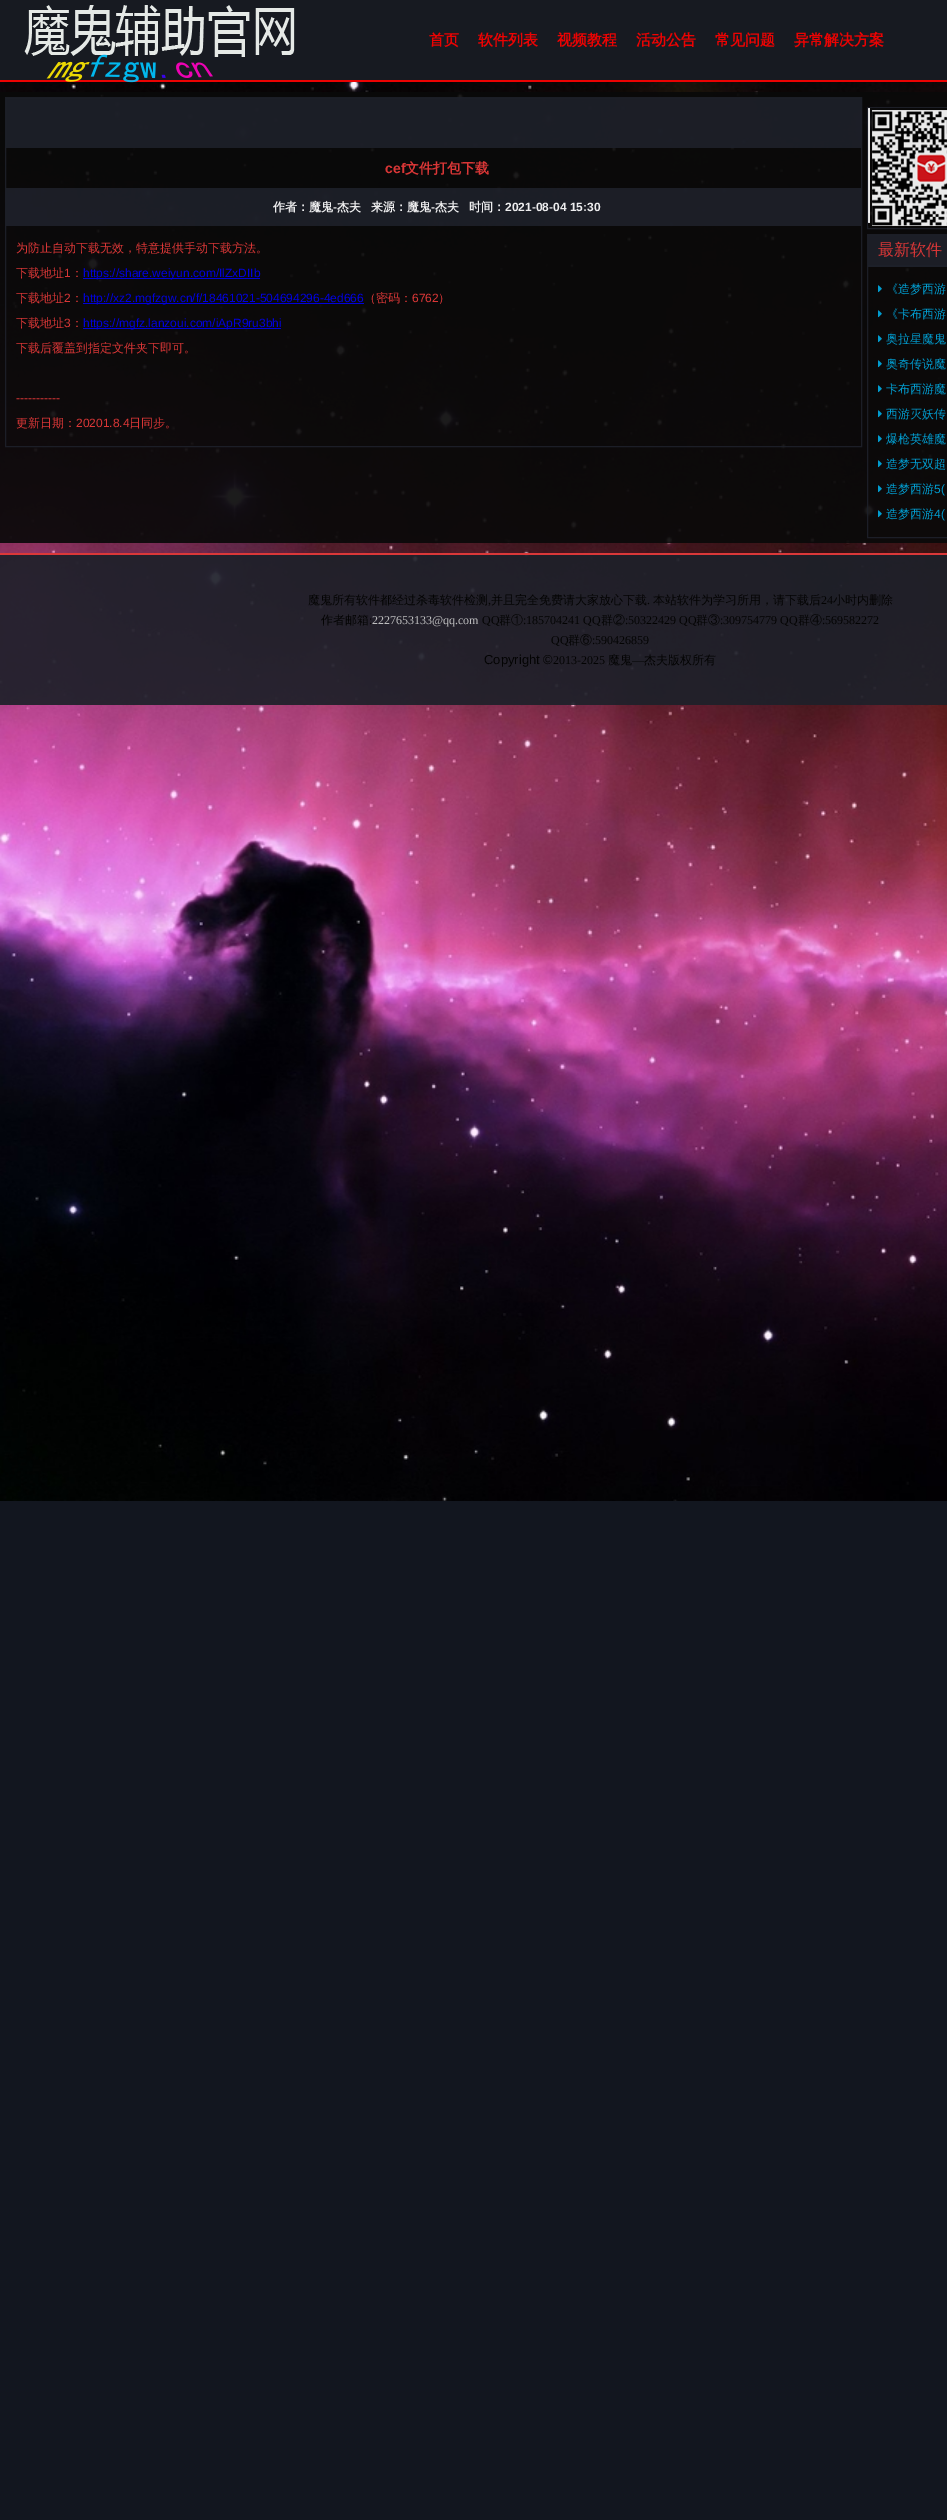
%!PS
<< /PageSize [947 2520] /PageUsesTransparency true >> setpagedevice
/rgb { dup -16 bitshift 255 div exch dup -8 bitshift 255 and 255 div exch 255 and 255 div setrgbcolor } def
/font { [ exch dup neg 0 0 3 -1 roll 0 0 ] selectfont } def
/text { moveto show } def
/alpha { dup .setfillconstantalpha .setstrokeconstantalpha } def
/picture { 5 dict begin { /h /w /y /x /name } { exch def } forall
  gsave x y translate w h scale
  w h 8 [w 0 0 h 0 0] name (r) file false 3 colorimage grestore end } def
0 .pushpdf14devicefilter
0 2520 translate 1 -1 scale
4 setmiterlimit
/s1 { /WenQuanYiZenHei-Bold 15 font 16#EC0202 rgb } def
/s2 { /LiberationSans-Bold 14 font 16#D93636 rgb } def
/s3 { /WenQuanYiZenHei-Bold 14 font 16#D93636 rgb } def
/s4 { /WenQuanYiZenHei-Bold 12 font 16#EDEDEE rgb } def
/s5 { /LiberationSans-Bold 12 font 16#EDEDEE rgb } def
/s6 { /WenQuanYiZenHei-Medium 12 font 16#D93636 rgb } def
/s7 { /LiberationSans-Regular 12 font 16#D93636 rgb } def
/s8 { /LiberationSans-Regular 12 font 16#0101DC rgb } def
/s9 { /WenQuanYiZenHei-Medium 16 font 16#D93636 rgb } def
/s10 { /WenQuanYiZenHei-Medium 12 font 16#019CCF rgb } def
/s11 { /LiberationSans-Regular 12 font 16#019CCF rgb } def
/s12 { /WenQuanYiZenHei-Medium 12 font 16#030303 rgb } def
/s13 { /LiberationSerif-Regular 12 font 16#030303 rgb } def
/s14 { /LiberationSerif-Regular 12 font 16#090305 rgb } def
/s15 { /LiberationSerif-Regular 12 font 16#BEBEBF rgb } def
/s16 { /LiberationSans-Regular 13 font 16#030303 rgb } def
16#12161F rgb
0 0 947 2520 rectfill
(pic1.raw) 0 80 947 1421 picture
0.92 alpha
16#171A21 rgb
0 0 947 82 rectfill
16#FF0000 rgb
0 80 947 2 rectfill
1 alpha
(pic2.raw) 24 5 271 78 picture
s1
(首页) 429 45 text
(软件列表) 478 45 text
(视频教程) 557 45 text
(活动公告) 636 45 text
(常见问题) 715 45 text
(异常解决方案) 794 45 text
0.92 alpha
16#090909 rgb
0 92 947 451 rectfill
16#1D2029 rgb
5.5 97.5 856 349 rectstroke
6 98 855 50 rectfill
6 188 855 1 rectfill
1 alpha
s2
(cef) 385 173 text
s3
(文件打包下载) 405 173 text
0.92 alpha
16#1D2029 rgb
6 189 855 37 rectfill
1 alpha
s4
(作者：魔鬼) 273 211 text
s5
(-) 333 211 text
s4
(杰夫) 337 211 text
(来源：魔鬼) 371 211 text
s5
(-) 431 211 text
s4
(杰夫) 435 211 text
(时间：) 469 211 text
s5
(2021-08-04 15:30) 505 211 text
s6
(为防止自动下载无效，特意提供手动下载方法。) 16 252 text
(下载地址) 16 277 text
s7
(1) 64 277 text
s6
(：) 71 277 text
0.92 alpha
16#0000EE rgb
83 278 177 1 rectfill
1 alpha
s8
(https://share.weiyun.com/IlZxDIIb) 83 277 text
s6
(下载地址) 16 302 text
s7
(2) 64 302 text
s6
(：) 71 302 text
16#0101DC rgb
83 303 281 1 rectfill
s8
(http://xz2.mgfzgw.cn/f/18461021-504694296-4ed666) 83 302 text
s6
(（密码：) 364 302 text
s7
(6762) 412 302 text
s6
(）) 438 302 text
(下载地址) 16 327 text
s7
(3) 64 327 text
s6
(：) 71 327 text
16#0101DC rgb
83 328 198 1 rectfill
s8
(https://mgfz.lanzoui.com/iApR9ru3bhi) 83 327 text
s6
(下载后覆盖到指定文件夹下即可。) 16 352 text
s7
(-----------) 16 402 text
s6
(更新日期：) 16 427 text
s7
(20201.8.4) 76 427 text
s6
(日同步。) 129 427 text
0.92 alpha
16#1D2029 rgb
867.5 107.5 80 121 rectstroke
1 alpha
(pic3.raw) 868 108 79 118 picture
0.92 alpha
867.5 234.5 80 303 rectstroke
868 235 79 30 rectfill
1 alpha
868 265 79 2 rectfill
s9
(最新软件) 878 255 text
(pic4.raw) 878 285 4 8 picture
s10
(《造梦西游) 886 293 text
(pic5.raw) 878 310 4 8 picture
(《卡布西游) 886 318 text
(pic6.raw) 878 335 4 8 picture
(奥拉星魔鬼) 886 343 text
(pic7.raw) 878 360 4 8 picture
(奥奇传说魔) 886 368 text
(pic4.raw) 878 385 4 8 picture
(卡布西游魔) 886 393 text
(pic4.raw) 878 410 4 8 picture
(西游灭妖传) 886 418 text
(pic8.raw) 878 435 4 8 picture
(爆枪英雄魔) 886 443 text
(pic9.raw) 878 460 4 8 picture
(造梦无双超) 886 468 text
(pic10.raw) 878 485 4 8 picture
(造梦西游) 886 493 text
s11
(5\() 934 493 text
(pic11.raw) 878 510 4 8 picture
s10
(造梦西游) 886 518 text
s11
(4\() 934 518 text
0.92 alpha
16#1D2029 rgb
0 553 947 152 rectfill
16#EB3A3A rgb
0 553 947 2 rectfill
1 alpha
s12
(魔鬼所有软件都经过杀毒软件检测) 308 604 text
s13
(,) 488 604 text
s12
(并且完全免费请大家放心下载) 491 604 text
s13
(.) 647 604 text
s12
(本站软件为学习所用，请下载后) 653 604 text
s13
(24) 821 604 text
s12
(小时内删除) 833 604 text
(作者邮箱) 321 624 text
s14
(:) 369 624 text
s15
(2227653133@qq.com) 372 624 text
s13
(QQ) 482 624 text
s12
(群①) 499 624 text
s13
(:185704241 QQ) 523 624 text
s12
(群②) 601 624 text
s13
(:50322429 QQ) 625 624 text
s12
(群③) 696 624 text
s13
(:309754779 QQ) 720 624 text
s12
(群④) 798 624 text
s13
(:569582272) 822 624 text
(QQ) 551 644 text
s12
(群⑥) 568 644 text
s13
(:590426859) 592 644 text
s16
(Copyright ©) 484 664 text
s13
(2013-2025) 553 664 text
s12
(魔鬼) 608 664 text
s13
(—) 632 664 text
s12
(杰夫版权所有) 644 664 text
.poppdf14devicefilter showpage
